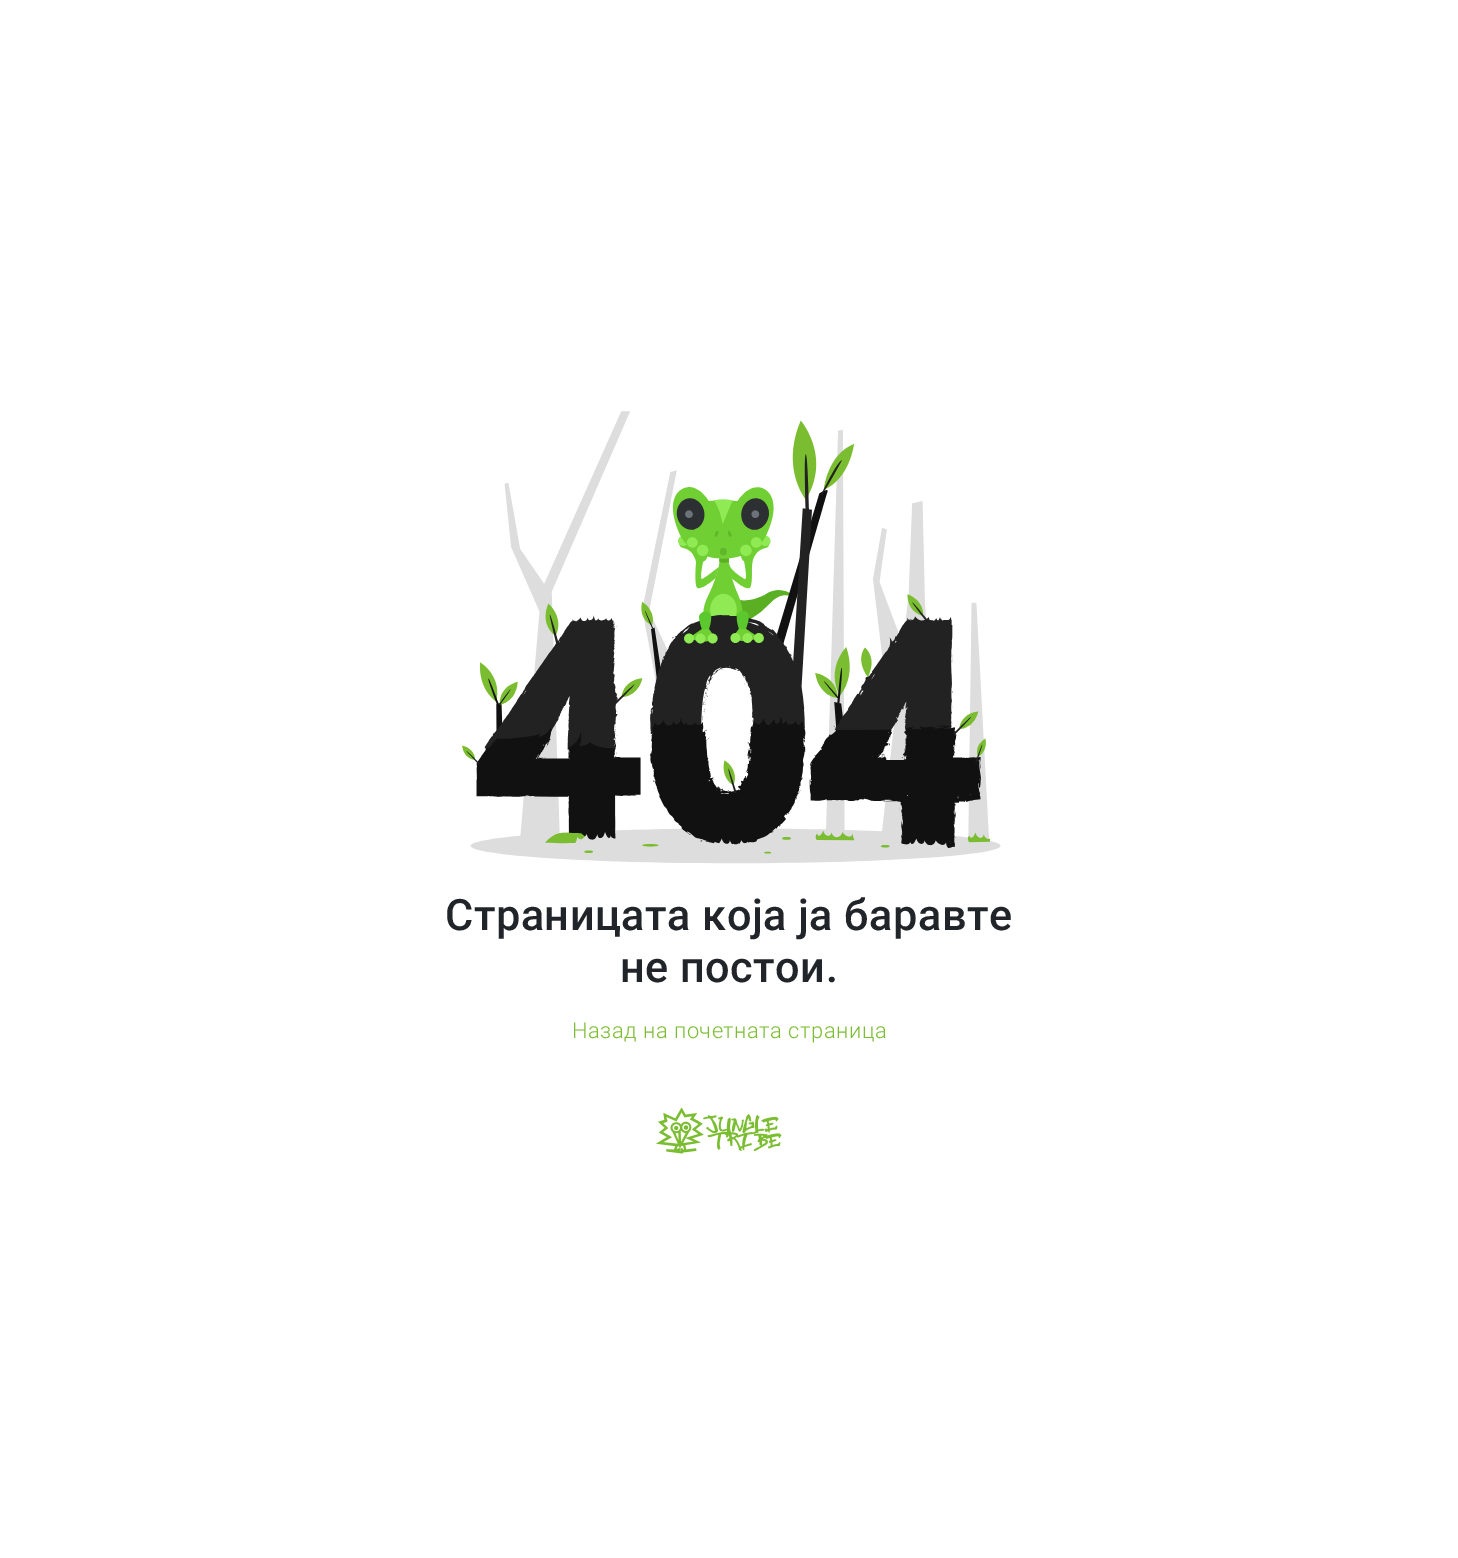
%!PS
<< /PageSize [1458 1558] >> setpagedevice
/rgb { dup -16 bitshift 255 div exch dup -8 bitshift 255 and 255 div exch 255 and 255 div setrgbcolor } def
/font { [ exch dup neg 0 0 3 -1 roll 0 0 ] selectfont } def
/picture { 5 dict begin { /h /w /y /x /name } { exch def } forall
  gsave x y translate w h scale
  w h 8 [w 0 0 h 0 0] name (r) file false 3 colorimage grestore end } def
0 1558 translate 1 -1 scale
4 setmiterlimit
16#FFFFFF rgb
0 0 1458 1558 rectfill
(pic1.raw) 462 411 539 453 picture
/Roboto-Medium 43.25 font
16#212529 rgb
445 930 moveto 0.5 0 (Страницата која ја баравте) ashow
620 982 moveto 0.5 0 (не постои.) ashow
/Roboto-Light 21.9 font
16#7ABD30 rgb
572 1038 moveto 0.5 0 (Назад на почетната страница) ashow
(pic2.raw) 656 1108 126 46 picture
showpage
